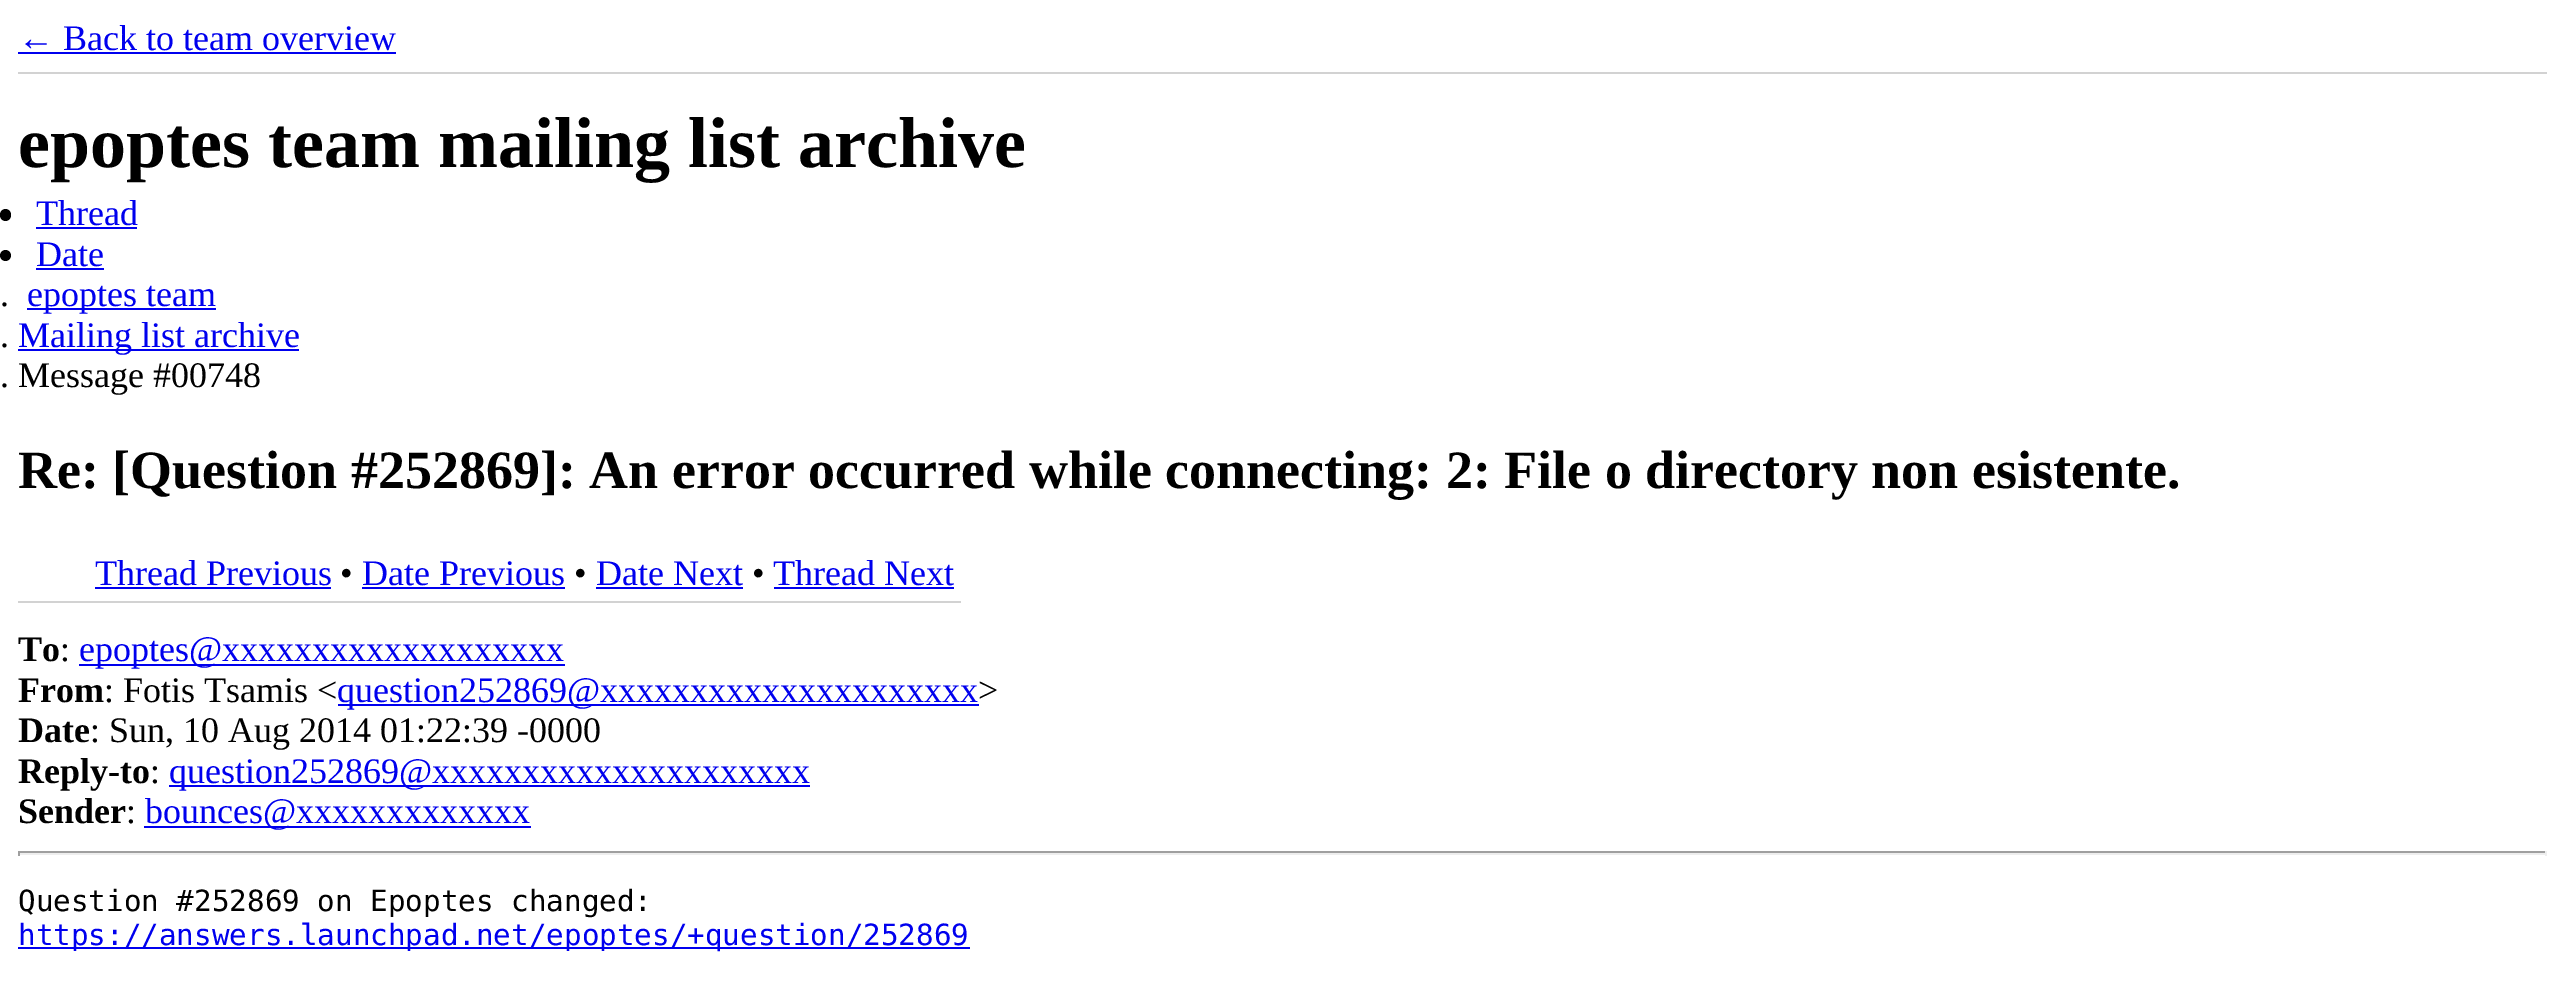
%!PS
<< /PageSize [2564 997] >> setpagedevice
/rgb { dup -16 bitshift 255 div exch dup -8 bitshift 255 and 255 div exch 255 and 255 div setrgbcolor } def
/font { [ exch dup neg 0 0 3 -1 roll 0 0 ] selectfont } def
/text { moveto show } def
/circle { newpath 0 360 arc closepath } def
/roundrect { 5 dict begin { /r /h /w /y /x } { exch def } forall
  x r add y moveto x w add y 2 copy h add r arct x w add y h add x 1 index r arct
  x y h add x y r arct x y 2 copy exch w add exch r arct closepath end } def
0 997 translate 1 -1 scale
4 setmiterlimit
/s1 { /LiberationSerif-Regular 36 font 16#0000EE rgb } def
/s2 { /LiberationSerif-Bold 72 font 16#000000 rgb } def
/s3 { /LiberationSerif-Regular 36 font 16#000000 rgb } def
/s4 { /LiberationSerif-Bold 54 font 16#000000 rgb } def
/s5 { /LiberationSerif-Bold 36 font 16#000000 rgb } def
/s6 { /DejaVuSansMono-Regular 29.25 font 16#000000 rgb } def
/s7 { /DejaVuSansMono-Regular 29.25 font 16#0000EE rgb } def
16#FFFFFF rgb
0 0 2564 997 rectfill
16#D2D2D2 rgb
18 72 2529 2 rectfill
s1
(← Back to team overview) 18 50 text
18 52 378 2 rectfill
s2
(epoptes team mailing list archive) 18 167 text
0 209 11 12 5.5 roundrect fill
s1
(Thread) 36 225 text
36 227 101 2 rectfill
16#000000 rgb
5.5 255.5 5.5 circle fill
s1
(Date) 36 266 text
36 268 68 2 rectfill
s3
(.) 0 306 text
16#0000EE rgb
27 308 189 2 rectfill
(epoptes team) 27 306 text
s3
(.) 0 347 text
16#0000EE rgb
18 349 281 2 rectfill
(Mailing list archive) 18 347 text
s3
(. Message #00748) 0 387 text
s4
(Re: [Question #252869]: An error occurred while connecting: 2: File o directory non esistente.) 18 488 text
16#D2D2D2 rgb
18 601 943 2 rectfill
s1
(Thread Previous) 95 585 text
95 587 236 2 rectfill
s3
(•) 340 585 text
s1
(Date Previous) 362 585 text
362 587 203 2 rectfill
s3
(•) 574 585 text
s1
(Date Next) 596 585 text
596 587 147 2 rectfill
s3
(•) 752 585 text
s1
(Thread Next) 773 585 text
774 587 180 2 rectfill
s5
(To) 18 661 text
s3
(:) 60 661 text
16#0000EE rgb
79 664 486 2 rectfill
(epoptes@xxxxxxxxxxxxxxxxxxx) 79 661 text
s5
(From) 18 702 text
s3
(: Fotis Tsamis <) 104 702 text
16#0000EE rgb
338 704 641 2 rectfill
(question252869@xxxxxxxxxxxxxxxxxxxxx) 337 702 text
s3
(>) 978 702 text
s5
(Date) 18 742 text
s3
(: Sun, 10 Aug 2014 01:22:39 -0000) 90 742 text
s5
(Reply-to) 18 783 text
s3
(:) 150 783 text
16#0000EE rgb
169 785 641 2 rectfill
(question252869@xxxxxxxxxxxxxxxxxxxxx) 169 783 text
s5
(Sender) 18 823 text
s3
(:) 126 823 text
16#0000EE rgb
144 826 387 2 rectfill
(bounces@xxxxxxxxxxxxx) 145 823 text
16#9F9F9F rgb
18 851 2529 2 rectfill
16#EEEEEE rgb
2545 851 2 5 rectfill
18 853 2529 2 rectfill
16#9F9F9F rgb
18 851 2 5 rectfill
s6
(Question #252869 on Epoptes changed:) 18 911 text
16#0000EE rgb
18 947 952 2 rectfill
(https://answers.launchpad.net/epoptes/+question/252869) 18 945 text
showpage
